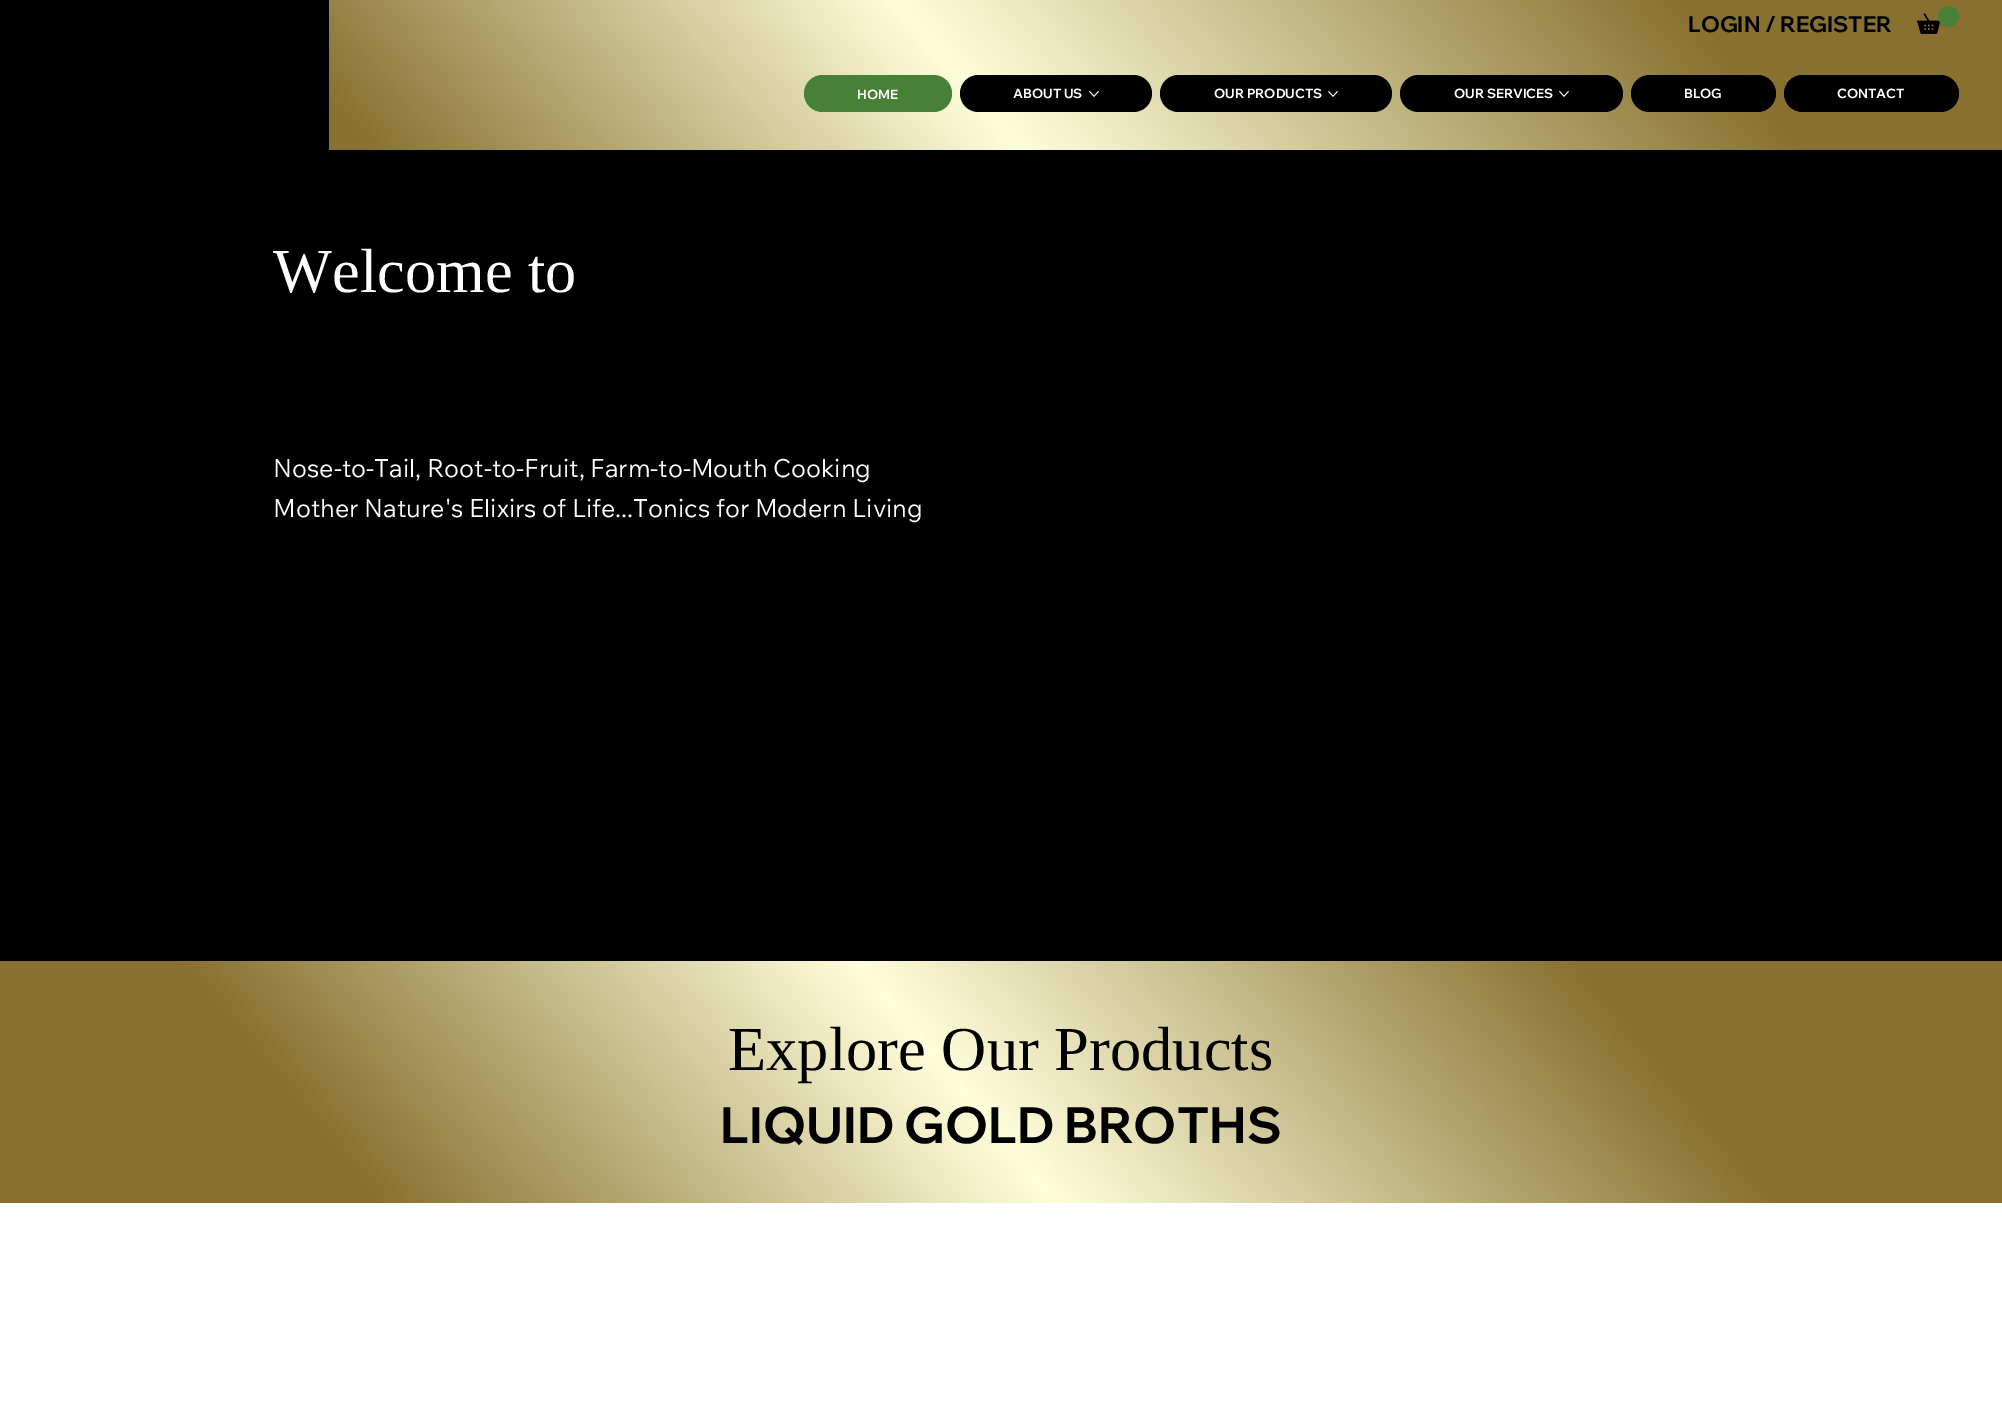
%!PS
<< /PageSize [2002 1425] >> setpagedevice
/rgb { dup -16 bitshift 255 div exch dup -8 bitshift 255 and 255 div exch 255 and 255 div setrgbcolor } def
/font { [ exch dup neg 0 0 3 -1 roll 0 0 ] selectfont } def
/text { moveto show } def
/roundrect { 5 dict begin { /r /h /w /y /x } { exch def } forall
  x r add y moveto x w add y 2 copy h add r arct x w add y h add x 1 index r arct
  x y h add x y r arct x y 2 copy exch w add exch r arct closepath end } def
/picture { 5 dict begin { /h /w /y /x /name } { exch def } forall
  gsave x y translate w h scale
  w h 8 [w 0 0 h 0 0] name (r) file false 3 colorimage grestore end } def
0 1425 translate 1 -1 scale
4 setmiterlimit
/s1 { /WixMadeforDisplay-Bold 22 font 16#000000 rgb } def
/s2 { /WixMadeforDisplay-Bold 13 font 16#FFFFFF rgb } def
/s3 { /LiberationSerif-Regular 62.5 font 16#FFFFFF rgb } def
/s4 { /WixMadeforText-Regular 25 font 16#FFFFFF rgb } def
/s5 { /LiberationSerif-Regular 62.5 font 16#000000 rgb } def
/s6 { /WixMadeforDisplay-Bold 50 font 16#000000 rgb } def
16#FFFFFF rgb
0 0 2002 1425 rectfill
16#000000 rgb
0 0 329 150 rectfill
gsave 329 0 moveto 2002 0 lineto 2002 150 lineto 329 150 lineto closepath clip newpath
<< /ShadingType 2 /ColorSpace /DeviceRGB /Coords [368 597 1634 -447] /Extend [true true] /Function << /FunctionType 3 /Domain [0 1] /Functions [<< /FunctionType 2 /Domain [0 1] /C0 [0.529 0.439 0.188] /C1 [0.529 0.439 0.188] /N 1 >> << /FunctionType 2 /Domain [0 1] /C0 [0.529 0.439 0.188] /C1 [1 0.996 0.859] /N 1 >> << /FunctionType 2 /Domain [0 1] /C0 [1 0.996 0.859] /C1 [0.529 0.439 0.188] /N 1 >> << /FunctionType 2 /Domain [0 1] /C0 [0.529 0.439 0.188] /C1 [0.529 0.439 0.188] /N 1 >>] /Bounds [0.17 0.48 0.85] /Encode [0 1 0 1 0 1 0 1] >> >> shfill grestore
s1
(LOGIN / REGISTER) 1688 32 text
(pic1.raw) 1917 6 42 28 picture
16#478037 rgb
804 75 148 37 18.5 roundrect fill
s2
(HOME) 857 99 text
16#000000 rgb
960 75 192 37 18.5 roundrect fill
s2
(ABOUT US) 1013 98 text
(pic2.raw) 1089 91 10 6 picture
16#000000 rgb
1160 75 232 37 18.5 roundrect fill
s2
(OUR PRODUCTS) 1214 98 text
(pic2.raw) 1328 91 10 6 picture
16#000000 rgb
1400 75 223 37 18.5 roundrect fill
s2
(OUR SERVICES) 1454 98 text
(pic2.raw) 1559 91 10 6 picture
16#000000 rgb
1631 75 145 37 18.5 roundrect fill
s2
(BLOG) 1684 98 text
16#000000 rgb
1784 75 175 37 18.5 roundrect fill
s2
(CONTACT) 1837 98 text
16#000000 rgb
0 150 2002 811 rectfill
s3
(Welcome to) 273 292 text
s4
(Nose-to-Tail, Root-to-Fruit, Farm-to-Mouth Cooking) 273 477 text
(Mother Nature's Elixirs of Life...Tonics for Modern Living) 273 517 text
gsave 0 961 moveto 2002 961 lineto 2002 1203 lineto 0 1203 lineto closepath clip newpath
<< /ShadingType 2 /ColorSpace /DeviceRGB /Coords [346 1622 1656 542] /Extend [true true] /Function << /FunctionType 3 /Domain [0 1] /Functions [<< /FunctionType 2 /Domain [0 1] /C0 [0.529 0.439 0.188] /C1 [0.529 0.439 0.188] /N 1 >> << /FunctionType 2 /Domain [0 1] /C0 [0.529 0.439 0.188] /C1 [1 0.996 0.859] /N 1 >> << /FunctionType 2 /Domain [0 1] /C0 [1 0.996 0.859] /C1 [0.529 0.439 0.188] /N 1 >> << /FunctionType 2 /Domain [0 1] /C0 [0.529 0.439 0.188] /C1 [0.529 0.439 0.188] /N 1 >>] /Bounds [0.17 0.48 0.81] /Encode [0 1 0 1 0 1 0 1] >> >> shfill grestore
s5
(Explore Our Products) 728 1070 text
s6
(LIQUID GOLD BROTHS) 720 1143 text
showpage
